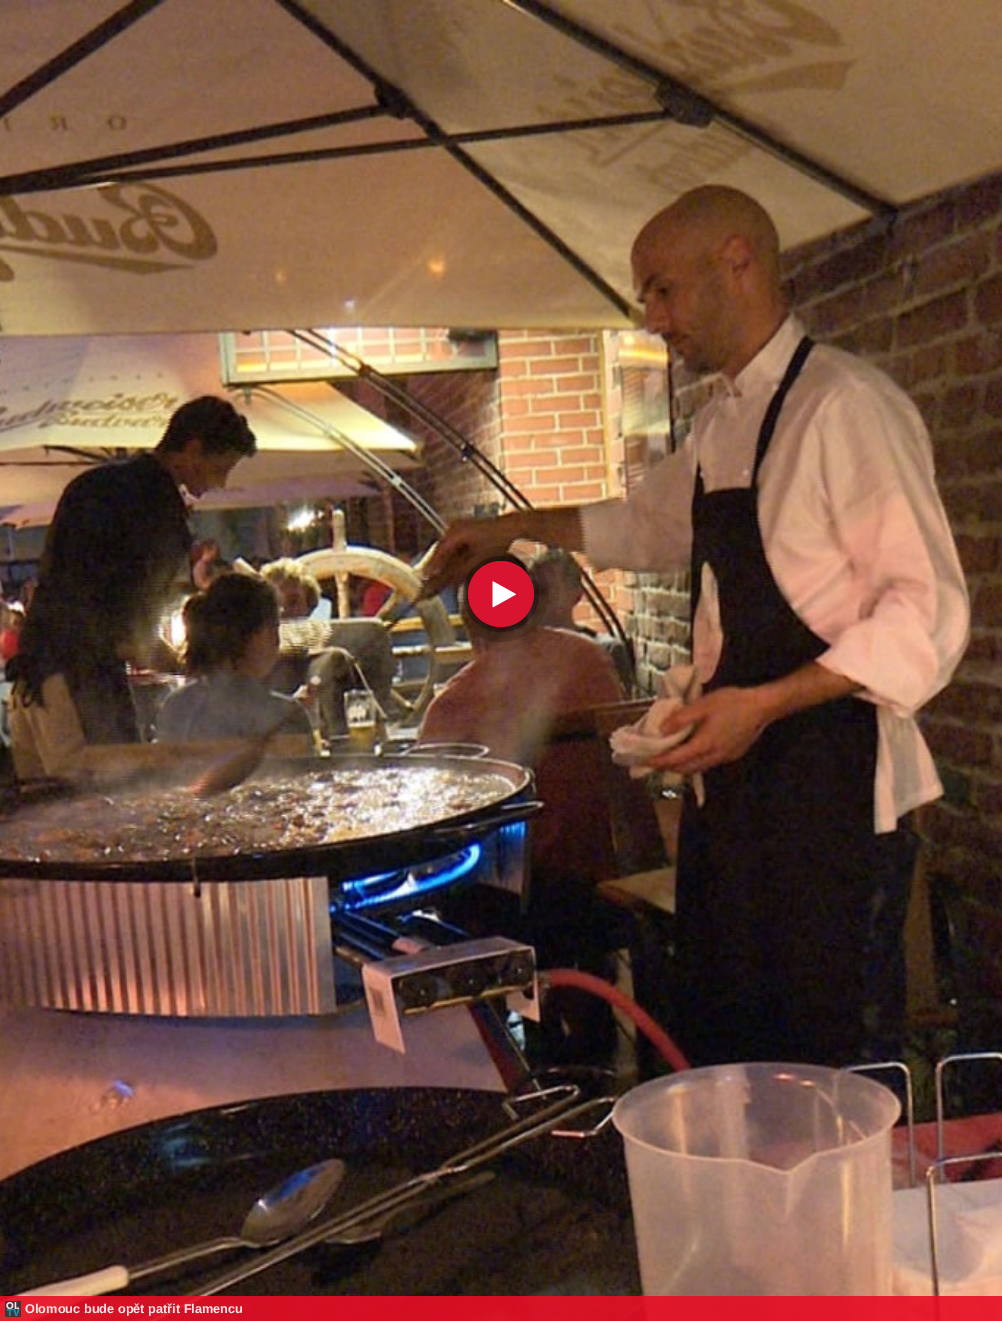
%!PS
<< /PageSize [1002 1321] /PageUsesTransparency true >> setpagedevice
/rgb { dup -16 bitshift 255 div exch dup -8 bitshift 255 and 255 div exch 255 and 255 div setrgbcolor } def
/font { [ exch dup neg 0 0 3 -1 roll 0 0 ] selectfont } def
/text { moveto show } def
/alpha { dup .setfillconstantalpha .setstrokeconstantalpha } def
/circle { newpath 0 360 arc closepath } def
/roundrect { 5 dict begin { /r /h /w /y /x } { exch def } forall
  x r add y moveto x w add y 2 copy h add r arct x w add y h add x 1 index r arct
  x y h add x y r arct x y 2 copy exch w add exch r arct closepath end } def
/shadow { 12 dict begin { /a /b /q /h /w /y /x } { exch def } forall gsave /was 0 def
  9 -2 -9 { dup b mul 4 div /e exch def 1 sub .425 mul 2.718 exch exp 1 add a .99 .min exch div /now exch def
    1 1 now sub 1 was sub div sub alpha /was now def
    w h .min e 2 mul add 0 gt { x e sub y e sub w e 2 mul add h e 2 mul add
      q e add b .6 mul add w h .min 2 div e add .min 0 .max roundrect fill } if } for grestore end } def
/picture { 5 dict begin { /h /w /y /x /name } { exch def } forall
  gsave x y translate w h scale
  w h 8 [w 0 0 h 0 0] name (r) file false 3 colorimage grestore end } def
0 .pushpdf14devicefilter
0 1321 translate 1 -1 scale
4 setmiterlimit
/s1 { /LiberationSans-Bold 12.75 font 16#FBE7E9 rgb } def
16#FFFFFF rgb
0 0 1002 1321 rectfill
(pic1.raw) 0 0 1002 1321 picture
16#000000 rgb
468 561 66 66 33 20 1 shadow
16#D91430 rgb
501 594 33 circle fill
(pic2.raw) 492 581 24 27 picture
0.9 alpha
16#E70E25 rgb
0 1296 1002 25 rectfill
1 alpha
(pic3.raw) 5 1301 16 16 picture
s1
(Olomouc bude opět patřit Flamencu) 25 1313 text
.poppdf14devicefilter showpage
